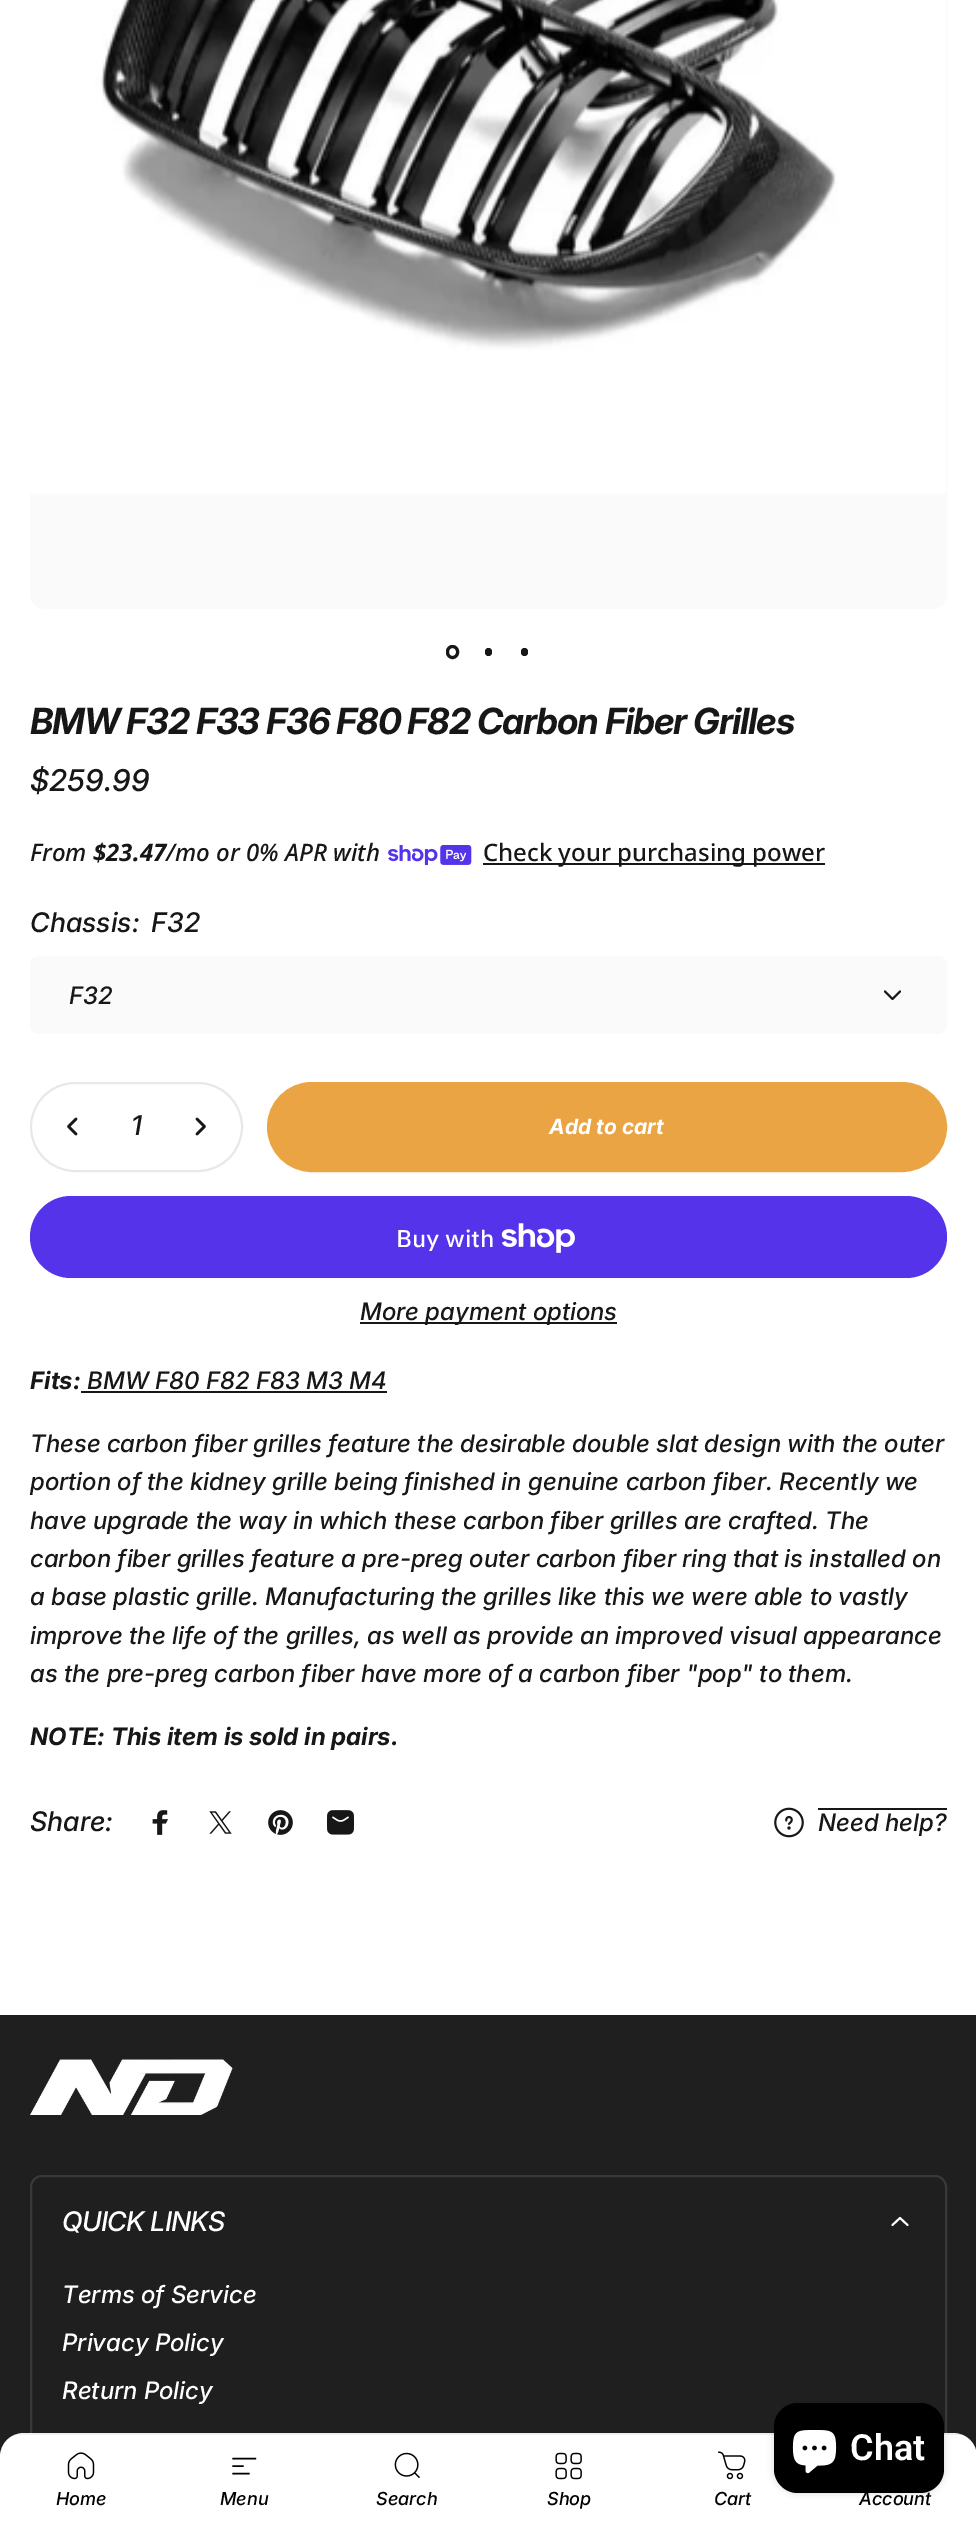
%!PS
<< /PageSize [976 2524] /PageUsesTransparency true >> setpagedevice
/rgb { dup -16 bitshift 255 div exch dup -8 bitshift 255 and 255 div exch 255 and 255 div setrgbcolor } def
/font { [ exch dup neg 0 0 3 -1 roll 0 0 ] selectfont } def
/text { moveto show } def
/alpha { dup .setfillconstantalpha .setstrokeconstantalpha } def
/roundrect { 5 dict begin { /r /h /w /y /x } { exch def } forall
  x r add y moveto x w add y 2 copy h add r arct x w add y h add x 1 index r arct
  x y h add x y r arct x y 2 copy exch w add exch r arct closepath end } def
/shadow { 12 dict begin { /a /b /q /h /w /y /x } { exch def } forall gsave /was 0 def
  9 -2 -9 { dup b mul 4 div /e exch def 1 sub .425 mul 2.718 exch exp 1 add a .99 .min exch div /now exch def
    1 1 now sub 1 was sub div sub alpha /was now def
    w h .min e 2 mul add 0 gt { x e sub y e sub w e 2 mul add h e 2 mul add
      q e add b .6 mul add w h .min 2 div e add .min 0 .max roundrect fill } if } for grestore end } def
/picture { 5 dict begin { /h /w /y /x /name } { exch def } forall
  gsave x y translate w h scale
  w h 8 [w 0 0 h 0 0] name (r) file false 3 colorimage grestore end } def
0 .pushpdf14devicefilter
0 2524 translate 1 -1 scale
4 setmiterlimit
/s1 { /Inter-MediumItalic 30 font 16#171717 rgb } def
/s2 { /NotoSans-MediumItalic 24 font 16#171717 rgb } def
/s3 { /NotoSans-BoldItalic 24 font 16#171717 rgb } def
/s4 { /NotoSans-Medium 24 font 16#171717 rgb } def
/s5 { /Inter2-MediumItalic 27 font 16#171717 rgb } def
/s6 { /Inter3-MediumItalic 24 font 16#171717 rgb } def
/s7 { /Inter3-BoldItalic 21 font 16#FFFFFF rgb } def
/s8 { /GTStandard-Medium 24 font 16#FFFFFF rgb } def
/s9 { /Inter-BoldItalic 24 font 16#171717 rgb } def
/s10 { /Inter3-MediumItalic 24 font 16#FFFFFF rgb } def
/s11 { /Roboto-SemiBold 36 font 16#FFFFFF rgb } def
/s12 { /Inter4-MediumItalic 18 font 16#000000 rgb } def
16#FFFFFF rgb
0 0 976 2524 rectfill
16#FAFAFA rgb
30 -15 917 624 15 roundrect fill
(pic1.raw) 30 0 916 494 picture
16#171717 rgb
3 setlinewidth
447.5 646.5 10 11 5 roundrect stroke
485 648 7 8 3.5 roundrect fill
521 648 7 8 3.5 roundrect fill
/Inter2-BoldItalic 36 font
30 734 moveto -1.1 0 (BMW F32 F33 F36 F80 F82 Carbon Fiber Grilles) ashow
s1
($259.99) 30 791 text
s2
(From) 30 861 text
s3
($23.47) 93 861 text
s2
(/mo or 0% APR with) 166 861 text
(pic2.raw) 388 845 84 21 picture
483 863 342 2 rectfill
s4
(Check your purchasing power) 483 861 text
s5
(Chassis:) 30 932 text
(F32) 151 932 text
16#FAFAFA rgb
30 956 917 78 9 roundrect fill
s6
(F32) 69 1004 text
1.9 setlinewidth
1 setlinecap
1 setlinejoin
885 991.5 moveto 892.5 999 lineto 900 991.5 lineto stroke
16#E8E8E8 rgb
2 setlinewidth
0 setlinecap
0 setlinejoin
31 1083 211 88 44 roundrect stroke
16#171717 rgb
2.5 setlinewidth
1 setlinecap
1 setlinejoin
76 1119 moveto 68.5 1126.5 lineto 76 1134 lineto stroke
s5
(1) 131 1135 text
197 1119 moveto 204.5 1126.5 lineto 197 1134 lineto stroke
16#EAA443 rgb
268.5 1083.5 677 87 43.5 roundrect gsave fill grestore
3 setlinewidth
0 setlinecap
0 setlinejoin
stroke
s7
(Add to cart) 549 1134 text
16#5433EB rgb
30 1196 917 82 41 roundrect fill
s8
(Buy with) 396 1247 text
(pic3.raw) 501 1223 74 30 picture
16#171717 rgb
360 1322 257 2 rectfill
s6
(More payment options) 360 1320 text
s9
(Fits:) 30 1389 text
s6
(BMW F80 F82 F83 M3 M4) 87 1389 text
81 1391 306 2 rectfill
(These carbon fiber grilles feature the desirable double slat design with the outer) 30 1452 text
(portion of the kidney grille being finished in genuine carbon fiber. Recently we) 30 1490 text
(have upgrade the way in which these carbon fiber grilles are crafted. The) 30 1529 text
(carbon fiber grilles feature a pre-preg outer carbon fiber ring that is installed on) 30 1567 text
(a base plastic grille. Manufacturing the grilles like this we were able to vastly) 30 1605 text
(improve the life of the grilles, as well as provide an improved visual appearance) 30 1644 text
(as the pre-preg carbon fiber have more of a carbon fiber "pop" to them.) 30 1682 text
s9
(NOTE: This item is sold in pairs.) 30 1745 text
s5
(Share:) 30 1831 text
(pic4.raw) 152 1810 16 25 picture
(pic5.raw) 209 1811 23 23 picture
(pic6.raw) 268 1810 25 25 picture
(pic7.raw) 327 1810 27 25 picture
(pic8.raw) 774 1807 30 31 picture
818 1808 129 2 rectfill
s6
(Need help?) 818 1831 text
16#1F1F1F rgb
0 2015 976 442 rectfill
(pic9.raw) 30 2059 203 56 picture
16#393939 rgb
2 setlinewidth
31 2176 915 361 11 roundrect stroke
/Inter2-MediumItalic 27 font
16#FFFFFF rgb
62 2231 moveto -0.75 0 (QUICK LINKS) ashow
1.9 setlinewidth
1 setlinecap
1 setlinejoin
892.5 2225 moveto 900 2218 lineto 907.5 2225 lineto stroke
s10
(Terms of Service) 62 2303 text
(Privacy Policy) 62 2351 text
(Return Policy) 62 2399 text
24 2433 moveto 953 2433 lineto 966.5 2433 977 2443.5 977 2457 curveto 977 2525 lineto 0 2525 lineto 0 2457 lineto 0 2443.5 10.5 2433 24 2433 curveto closepath fill
0.06 alpha
16#000000 rgb
12 2433 953 2 rectfill
1 alpha
774 2403 170 90 24 4 0.15 shadow
774 2403 170 90 24 roundrect fill
(pic10.raw) 792 2430 45 44 picture
s11
(Chat) 850 2460 text
(pic11.raw) 67 2452 28 28 picture
s12
(Home) 56 2505 text
1.5 setlinewidth
233 2458.5 moveto 255.5 2458.5 lineto 233 2466 moveto 243 2466 lineto 233 2473.5 moveto 249 2473.5 lineto stroke
(Menu) 220 2505 text
(pic12.raw) 394 2452 26 26 picture
(Search) 376 2505 text
(pic13.raw) 555 2452 27 28 picture
(Shop) 547 2505 text
(pic14.raw) 718 2451 28 29 picture
(Cart) 714 2505 text
(Account) 859 2505 text
.poppdf14devicefilter showpage
